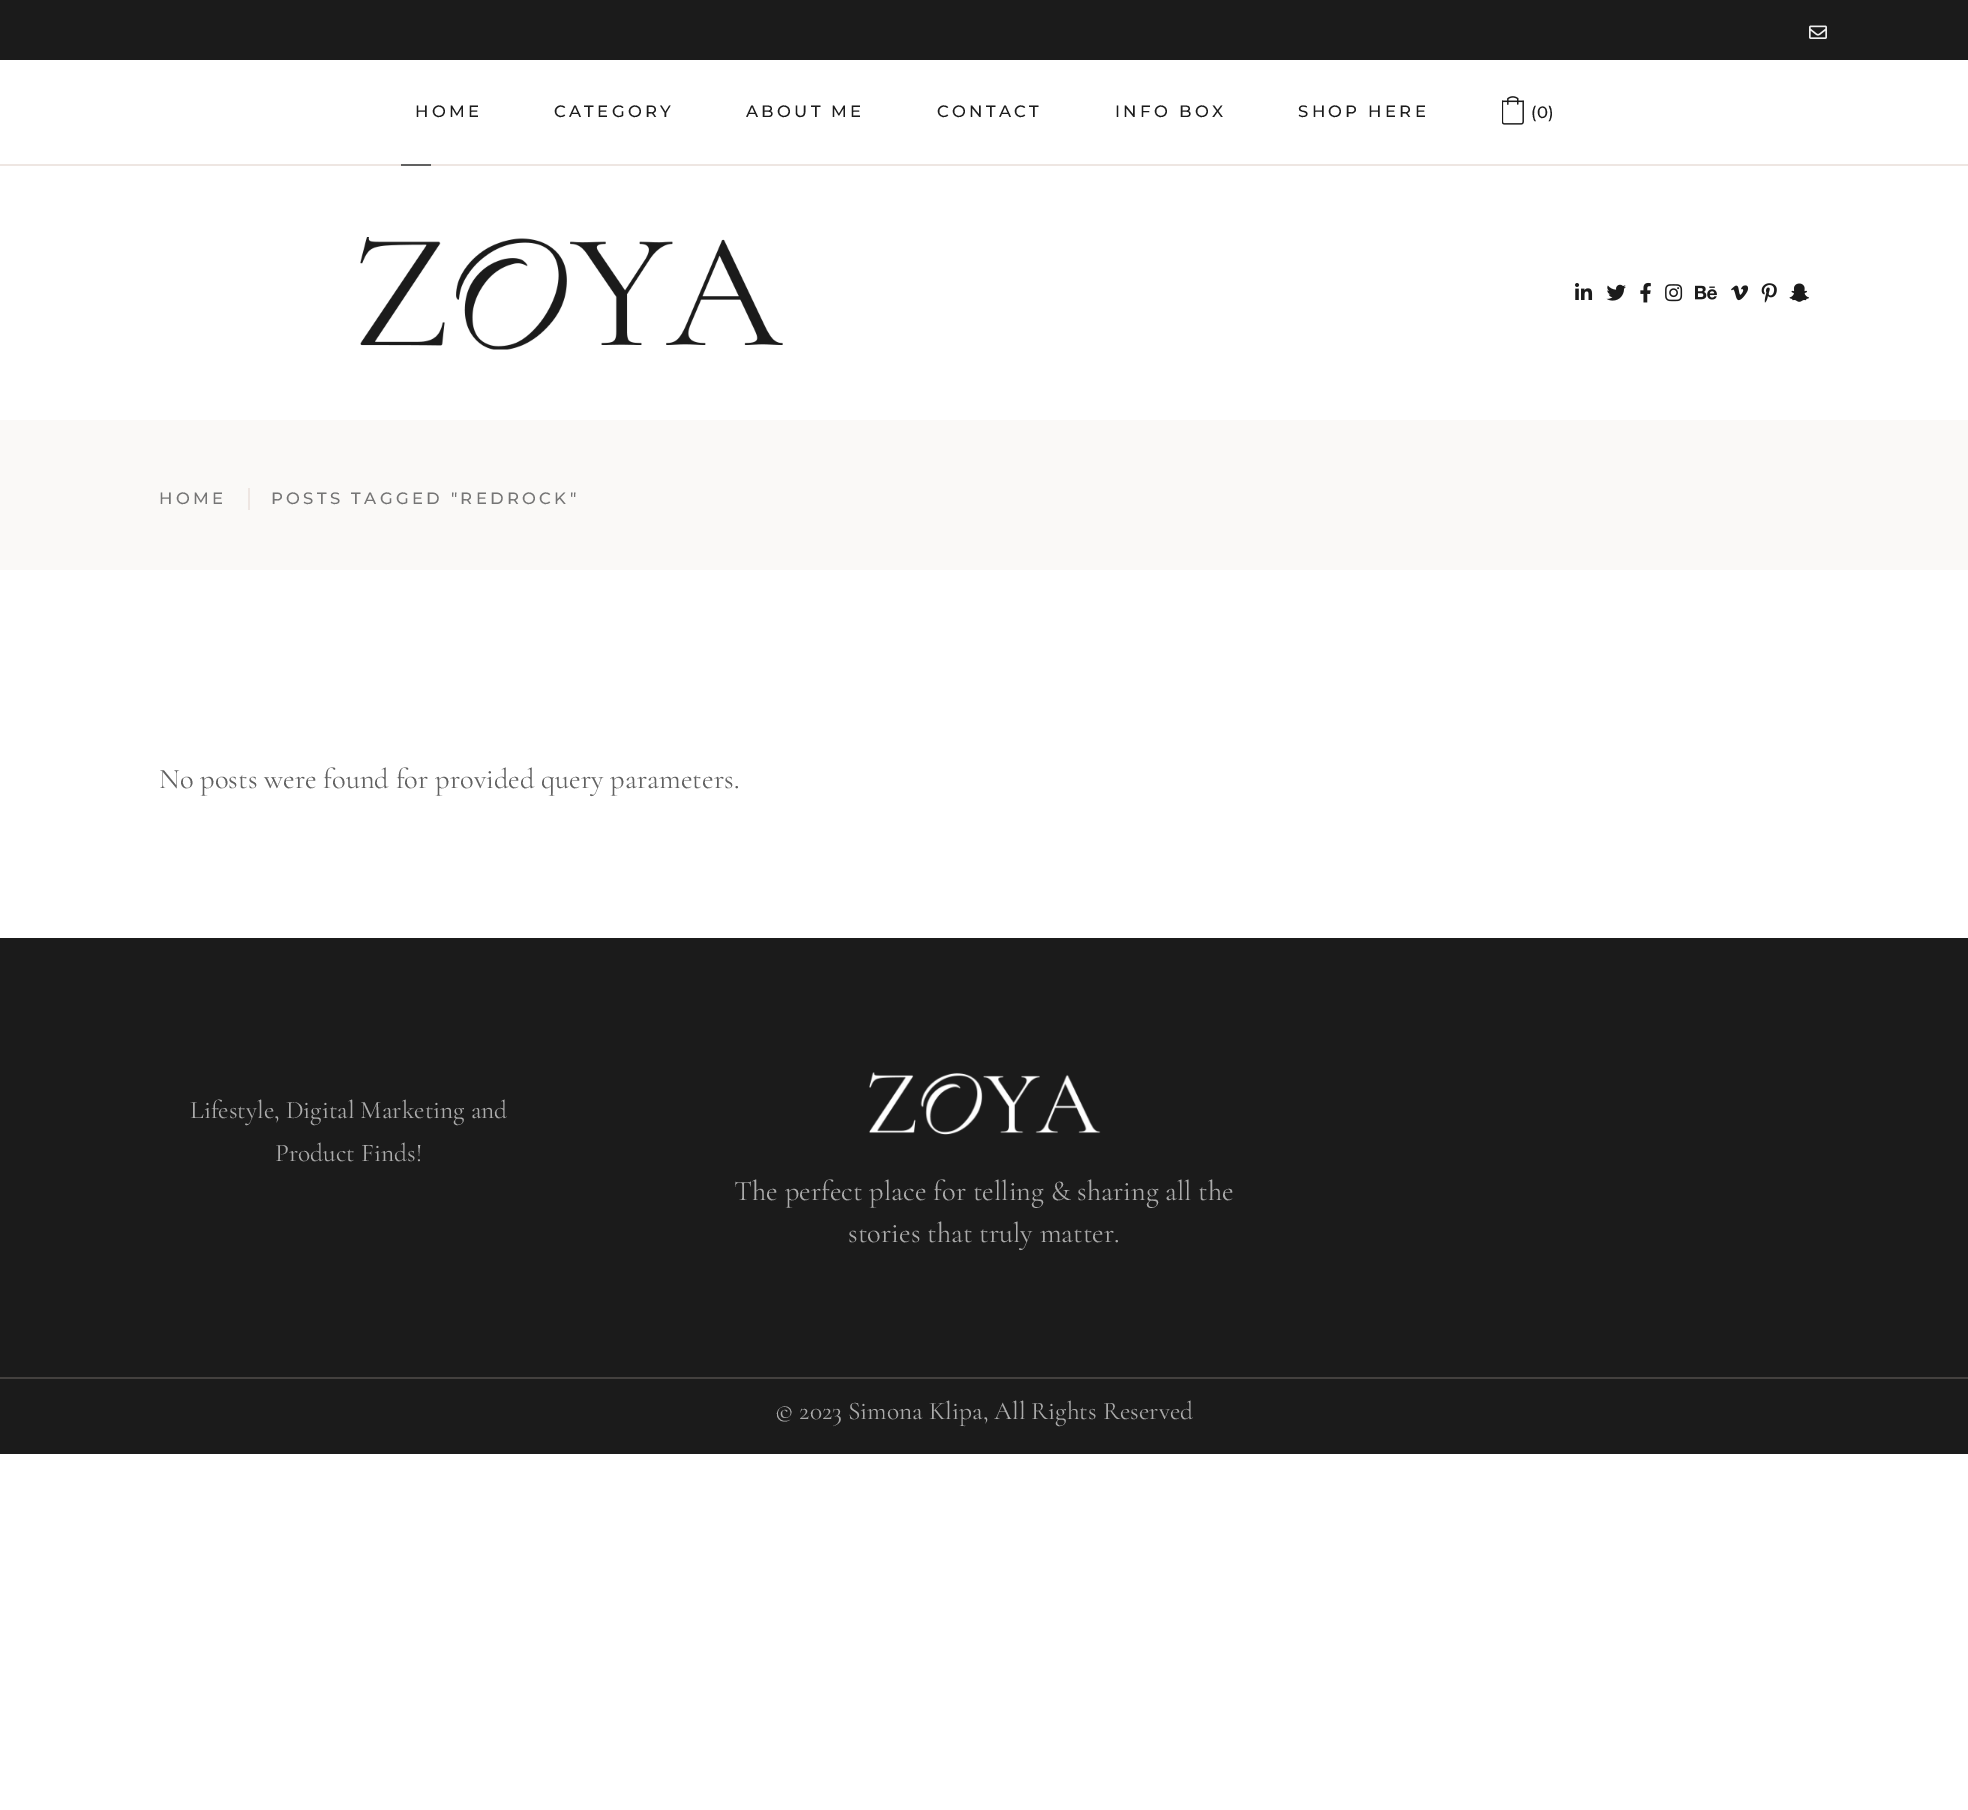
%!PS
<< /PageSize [1968 1810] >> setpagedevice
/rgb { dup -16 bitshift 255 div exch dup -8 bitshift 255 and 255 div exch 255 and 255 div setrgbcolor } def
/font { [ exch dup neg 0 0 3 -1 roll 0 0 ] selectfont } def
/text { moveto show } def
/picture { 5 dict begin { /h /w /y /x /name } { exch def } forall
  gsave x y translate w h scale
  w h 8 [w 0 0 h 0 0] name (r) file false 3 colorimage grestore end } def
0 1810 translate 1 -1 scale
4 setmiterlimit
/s1 { /Montserrat-Medium 16.5 font 16#1B1B1B rgb } def
/s2 { /CormorantGaramond-Regular 28.5 font 16#616161 rgb } def
/s3 { /CormorantGaramond-Regular 25.5 font 16#ABABAB rgb } def
/s4 { /CormorantGaramond-Regular 28.5 font 16#ABABAB rgb } def
16#FFFFFF rgb
0 0 1968 1810 rectfill
16#1B1B1B rgb
0 0 1968 60 rectfill
(pic1.raw) 1809 25 18 14 picture
/Montserrat-Medium 16.5 font
415 117 moveto 3.3 0 (HOME) ashow
554 117 moveto 3.3 0 (CATEGORY) ashow
746 117 moveto 3.3 0 (ABOUT ME) ashow
937 117 moveto 3.3 0 (CONTACT) ashow
1115 117 moveto 3.3 0 (INFO BOX) ashow
1298 117 moveto 3.3 0 (SHOP HERE) ashow
16#EEE6E2 rgb
0 164 1968 2 rectfill
16#616161 rgb
401 164 30 2 rectfill
(pic2.raw) 1502 96 22 29 picture
s1
(\(0\)) 1531 118 text
(pic3.raw) 360 237 423 113 picture
(pic4.raw) 1575 283 18 17 picture
(pic5.raw) 1606 284 20 17 picture
(pic6.raw) 1640 282 11 21 picture
(pic7.raw) 1665 284 18 18 picture
(pic8.raw) 1695 285 22 15 picture
(pic9.raw) 1731 285 18 16 picture
(pic10.raw) 1761 283 16 20 picture
(pic11.raw) 1789 283 20 19 picture
16#FAF9F7 rgb
0 420 1968 150 rectfill
16#757575 rgb
159 504 moveto 3.3 0 (HOME) ashow
16#EEE6E2 rgb
248 488 2 22 rectfill
16#757575 rgb
271 504 moveto 3.3 0 (POSTS TAGGED "REDROCK") ashow
s2
(No posts were found for provided query parameters.) 159 788 text
16#1B1B1B rgb
0 938 1968 439 rectfill
s3
(Lifestyle, Digital Marketing and) 190 1118 text
(Product Finds!) 275 1161 text
(pic12.raw) 869 1072 232 63 picture
s4
(The perfect place for telling & sharing all the) 734 1200 text
(stories that truly matter.) 848 1242 text
16#1B1B1B rgb
0 1379 1968 75 rectfill
16#44413F rgb
0 1377 1968 2 rectfill
s3
(© 2023 Simona Klipa, All Rights Reserved) 775 1419 text
showpage
